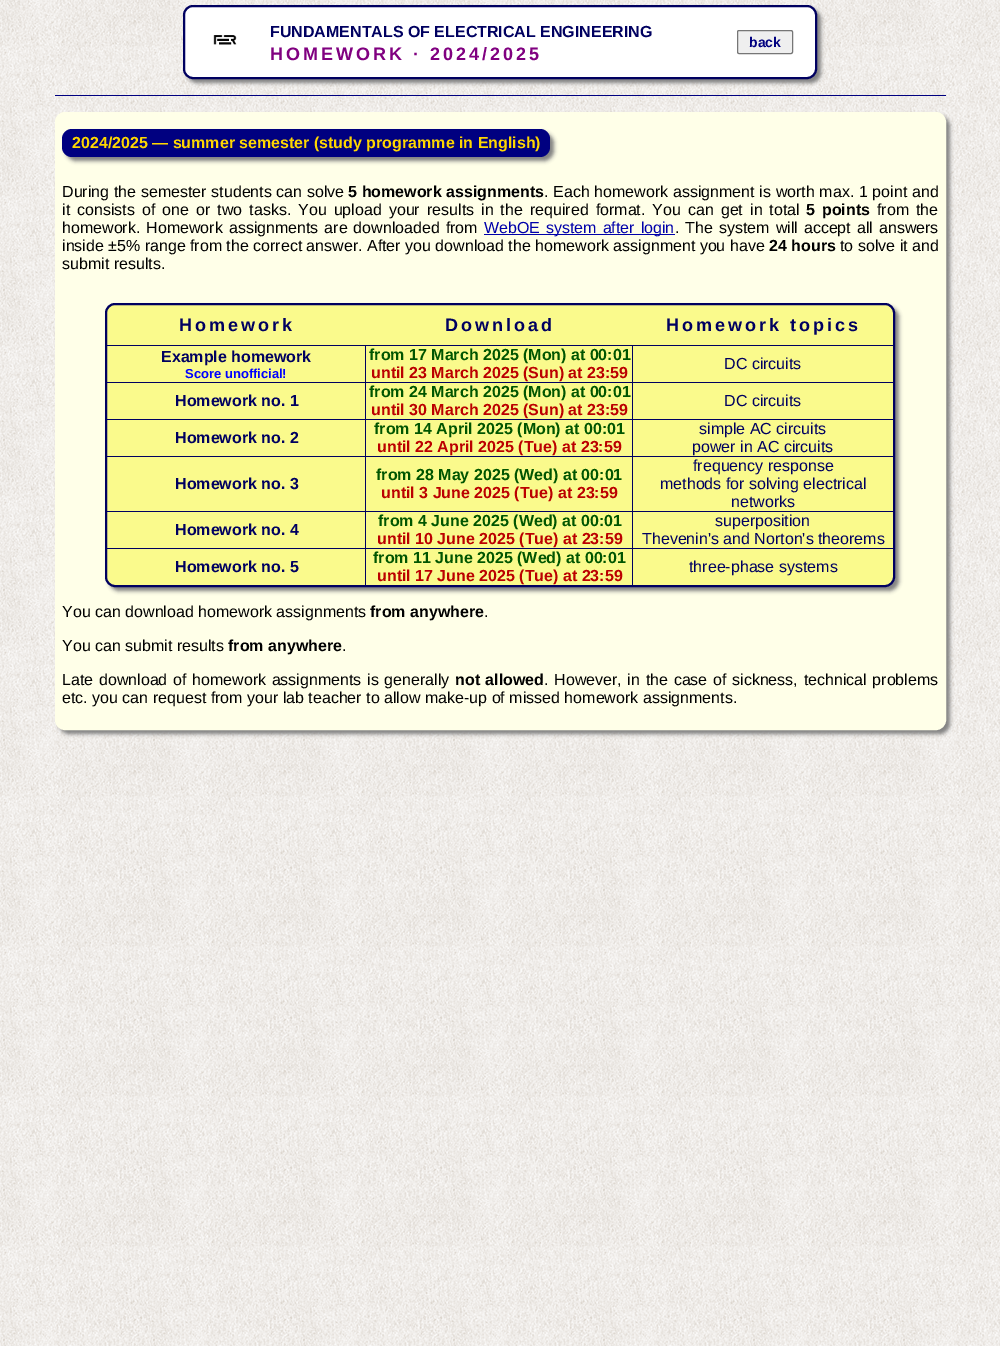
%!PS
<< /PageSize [1000 1346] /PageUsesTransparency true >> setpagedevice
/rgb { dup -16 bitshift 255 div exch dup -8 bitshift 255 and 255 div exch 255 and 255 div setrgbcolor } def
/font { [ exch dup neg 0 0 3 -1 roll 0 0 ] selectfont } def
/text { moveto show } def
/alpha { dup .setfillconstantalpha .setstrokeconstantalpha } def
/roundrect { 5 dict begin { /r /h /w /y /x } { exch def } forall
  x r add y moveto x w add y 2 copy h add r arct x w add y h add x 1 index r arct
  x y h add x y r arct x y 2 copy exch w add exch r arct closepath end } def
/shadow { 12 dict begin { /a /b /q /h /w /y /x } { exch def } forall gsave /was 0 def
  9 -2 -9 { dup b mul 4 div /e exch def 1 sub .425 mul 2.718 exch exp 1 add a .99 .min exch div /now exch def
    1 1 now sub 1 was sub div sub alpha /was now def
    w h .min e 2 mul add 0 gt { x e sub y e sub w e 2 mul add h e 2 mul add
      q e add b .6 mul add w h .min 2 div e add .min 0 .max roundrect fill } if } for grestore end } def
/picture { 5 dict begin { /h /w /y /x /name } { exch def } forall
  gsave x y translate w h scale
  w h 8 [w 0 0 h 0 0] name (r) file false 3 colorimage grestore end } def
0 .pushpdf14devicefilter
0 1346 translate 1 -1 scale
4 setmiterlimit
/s1 { /LiberationSans-Bold 16 font 16#000060 rgb } def
/s2 { /LiberationSans-Bold 14 font 16#000080 rgb } def
/s3 { /LiberationSans-Bold 16 font 16#FFD700 rgb } def
/s4 { /LiberationSans-Regular 16 font 16#000000 rgb } def
/s5 { /LiberationSans-Bold 16 font 16#000000 rgb } def
/s6 { /LiberationSans-Bold 13 font 16#0000FF rgb } def
/s7 { /LiberationSans-Bold 16 font 16#005500 rgb } def
/s8 { /LiberationSans-Bold 16 font 16#BB0000 rgb } def
/s9 { /LiberationSans-Regular 16 font 16#000060 rgb } def
16#FFFFFF rgb
0 0 1000 1346 rectfill
(pic1.raw) 0 0 1000 1346 picture
16#808080 rgb
187 9 634 74 10 2 1 shadow
16#FFFFFF rgb
184 6 632 72 9 roundrect gsave fill grestore
16#000060 rgb
2 setlinewidth
stroke
(pic2.raw) 213 35 24 10 picture
s1
(FUNDAMENTALS OF ELECTRICAL ENGINEERING) 270 37 text
/LiberationSans-Bold 18 font
16#800080 rgb
270 60 moveto 3 0 (HOMEWORK · 2024/2025) ashow
16#EFEFEF rgb
737.5 30.5 55 23 1.5 roundrect gsave fill grestore
16#767676 rgb
1 setlinewidth
stroke
s2
(back) 749 47 text
55 95 891 1 rectfill
16#808080 rgb
59 116 891 618 10 2 1 shadow
16#FFFFE8 rgb
56 113 889 616 9 roundrect gsave fill grestore
2 setlinewidth
stroke
16#808080 rgb
66 133 488 28 10 2 1 shadow
16#000080 rgb
62 129 488 28 10 roundrect fill
s3
(2024/2025 — summer semester \(study programme in English\)) 72 148 text
/LiberationSans-Regular 16 font
16#000000 rgb
62 197 moveto 0.25 0 32 (During the semester students can solve) widthshow
/LiberationSans-Bold 16 font
348 197 moveto 0.25 0 32 (5 homework assignments) widthshow
/LiberationSans-Regular 16 font
544 197 moveto 0.25 0 32 (. Each homework assignment is worth max. 1 point and) widthshow
62 215 moveto 2.6 0 32 (it consists of one or two tasks. You upload your results in the required format. You can get in total) widthshow
/LiberationSans-Bold 16 font
806 215 moveto 2.6 0 32 (5 points) widthshow
/LiberationSans-Regular 16 font
877 215 moveto 2.6 0 32 (from the) widthshow
62 233 moveto 1.5 0 32 (homework. Homework assignments are downloaded from) widthshow
16#0000AA rgb
484 234 191 1 rectfill
484 233 moveto 1.5 0 32 (WebOE system after login) widthshow
16#000000 rgb
675 233 moveto 1.5 0 32 (. The system will accept all answers) widthshow
(inside ±5% range from the correct answer. After you download the homework assignment you have) 62 251 text
s5
(24 hours) 769 251 text
s4
(to solve it and) 840 251 text
(submit results.) 62 269 text
16#808080 rgb
109 307 790 284 10 2 1 shadow
16#FAFA8C rgb
106 304 788 282 9 roundrect gsave fill grestore
16#000060 rgb
stroke
/LiberationSans-Bold 18 font
179 331 moveto 3 0 (Homework) ashow
445 331 moveto 3 0 (Download) ashow
666 331 moveto 3 0 (Homework topics) ashow
107 345 786 1 rectfill
365 345 1 37 rectfill
s1
(Example homework) 161 362 text
s6
(Score unofficial!) 185 378 text
16#000060 rgb
632 345 1 37 rectfill
s7
(from 17 March 2025 \(Mon\) at 00:01) 369 360 text
s8
(until 23 March 2025 \(Sun\) at 23:59) 371 378 text
s9
(DC circuits) 724 369 text
107 382 786 1 rectfill
365 382 1 37 rectfill
s1
(Homework no. 1) 175 406 text
632 382 1 37 rectfill
s7
(from 24 March 2025 \(Mon\) at 00:01) 369 397 text
s8
(until 30 March 2025 \(Sun\) at 23:59) 371 415 text
s9
(DC circuits) 724 406 text
107 419 786 1 rectfill
365 419 1 37 rectfill
s1
(Homework no. 2) 175 443 text
632 419 1 37 rectfill
s7
(from 14 April 2025 \(Mon\) at 00:01) 374 434 text
s8
(until 22 April 2025 \(Tue\) at 23:59) 377 452 text
s9
(simple AC circuits) 699 434 text
(power in AC circuits) 692 452 text
107 456 786 1 rectfill
365 456 1 55 rectfill
s1
(Homework no. 3) 175 489 text
632 456 1 55 rectfill
s7
(from 28 May 2025 \(Wed\) at 00:01) 376 480 text
s8
(until 3 June 2025 \(Tue\) at 23:59) 381 498 text
s9
(frequency response) 693 471 text
(methods for solving electrical) 660 489 text
(networks) 731 507 text
107 511 786 1 rectfill
365 511 1 37 rectfill
s1
(Homework no. 4) 175 535 text
632 511 1 37 rectfill
s7
(from 4 June 2025 \(Wed\) at 00:01) 378 526 text
s8
(until 10 June 2025 \(Tue\) at 23:59) 377 544 text
s9
(superposition) 715 526 text
(Thevenin's and Norton's theorems) 642 544 text
107 548 786 1 rectfill
365 548 1 37 rectfill
s1
(Homework no. 5) 175 572 text
632 548 1 37 rectfill
s7
(from 11 June 2025 \(Wed\) at 00:01) 373 563 text
s8
(until 17 June 2025 \(Tue\) at 23:59) 377 581 text
s9
(three-phase systems) 689 572 text
s4
(You can download homework assignments) 62 617 text
s5
(from anywhere) 370 617 text
s4
(.) 484 617 text
(You can submit results) 62 651 text
s5
(from anywhere) 228 651 text
s4
(.) 342 651 text
62 685 moveto 1.25 0 32 (Late download of homework assignments is generally) widthshow
/LiberationSans-Bold 16 font
455 685 moveto 1 0 32 (not allowed) widthshow
/LiberationSans-Regular 16 font
544 685 moveto 1.25 0 32 (. However, in the case of sickness, technical problems) widthshow
(etc. you can request from your lab teacher to allow make-up of missed homework assignments.) 62 703 text
.poppdf14devicefilter showpage
